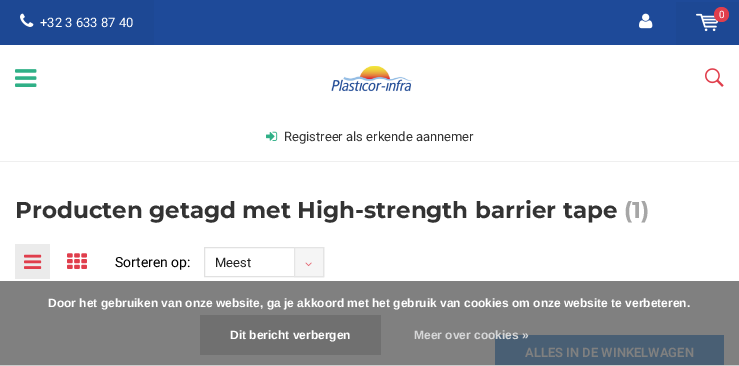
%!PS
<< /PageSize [739 366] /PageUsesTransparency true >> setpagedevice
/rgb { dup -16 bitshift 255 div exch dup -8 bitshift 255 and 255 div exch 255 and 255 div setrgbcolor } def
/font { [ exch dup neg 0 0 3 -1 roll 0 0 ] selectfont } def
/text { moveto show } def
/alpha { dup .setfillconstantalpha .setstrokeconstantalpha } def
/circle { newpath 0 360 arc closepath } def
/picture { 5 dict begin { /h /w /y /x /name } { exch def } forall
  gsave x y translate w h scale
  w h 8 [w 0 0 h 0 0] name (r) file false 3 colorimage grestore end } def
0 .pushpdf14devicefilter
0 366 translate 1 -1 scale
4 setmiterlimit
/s1 { /Roboto-Regular 10 font 16#FFFFFF rgb } def
/s2 { /Roboto-Regular 13 font 16#FFFFFF rgb } def
/s3 { /Roboto-Regular 13 font 16#333333 rgb } def
/s4 { /Montserrat-Bold 23 font 16#333333 rgb } def
/s5 { /Montserrat-Bold 23 font 16#A6A6A6 rgb } def
/s6 { /Roboto-Regular 14 font 16#000000 rgb } def
/s7 { /Roboto-Regular 13 font 16#212121 rgb } def
/s8 { /Roboto-SemiBold 13 font 16#808080 rgb } def
/s9 { /LiberationSans-Bold 12 font 16#FFFFFF rgb } def
/s10 { /LiberationSans-Bold 12 font 16#D6D7D8 rgb } def
16#FFFFFF rgb
0 0 739 366 rectfill
16#808080 rgb
0 281 739 84 rectfill
16#1E4A99 rgb
154 0 585 45 rectfill
(pic1.raw) 639 13 14 16 picture
16#1D4894 rgb
676 2 63 43 rectfill
(pic2.raw) 696 13 23 19 picture
16#E03E4C rgb
721.5 14.5 7.5 circle fill
s1
(0) 719 18 text
16#1D4894 rgb
0 0 154 45 rectfill
(pic3.raw) 20 13 14 14 picture
s2
(+32 3 633 87 40) 40 27 text
(pic4.raw) 15 69 22 18 picture
(pic5.raw) 331 66 82 26 picture
(pic6.raw) 705 68 19 19 picture
16#EFEFEF rgb
0 161 739 1 rectfill
(pic7.raw) 266 131 12 10 picture
s3
(Registreer als erkende aannemer) 284 141 text
s4
(Producten getagd met High-strength barrier tape) 15 218 text
s5
(\(1\)) 624 218 text
16#EBEBEB rgb
15 244 35 35 rectfill
(pic8.raw) 24 254 18 15 picture
(pic9.raw) 67 253 20 16 picture
s6
(Sorteren op:) 115 267 text
16#E1E1E1 rgb
204.5 247.5 119 29 rectstroke
s7
(Meest) 215 267 text
0.8 alpha
16#F3F3F3 rgb
294 247 30 30 rectfill
16#E1E1E1 rgb
294.5 247.5 29 29 rectstroke
1 alpha
(pic10.raw) 305 262 7 5 picture
16#495F74 rgb
495 335 229 30 rectfill
s8
(ALLES IN DE WINKELWAGEN) 525 357 text
16#CCCCCC rgb
0 365 739 1 rectfill
s9
(Door het gebruiken van onze website, ga je akkoord met het gebruik van cookies om onze website te verbeteren.) 48 307 text
16#707070 rgb
200 315 181 40 rectfill
s9
(Dit bericht verbergen) 230 339 text
s10
(Meer over cookies ») 414 339 text
.poppdf14devicefilter showpage
